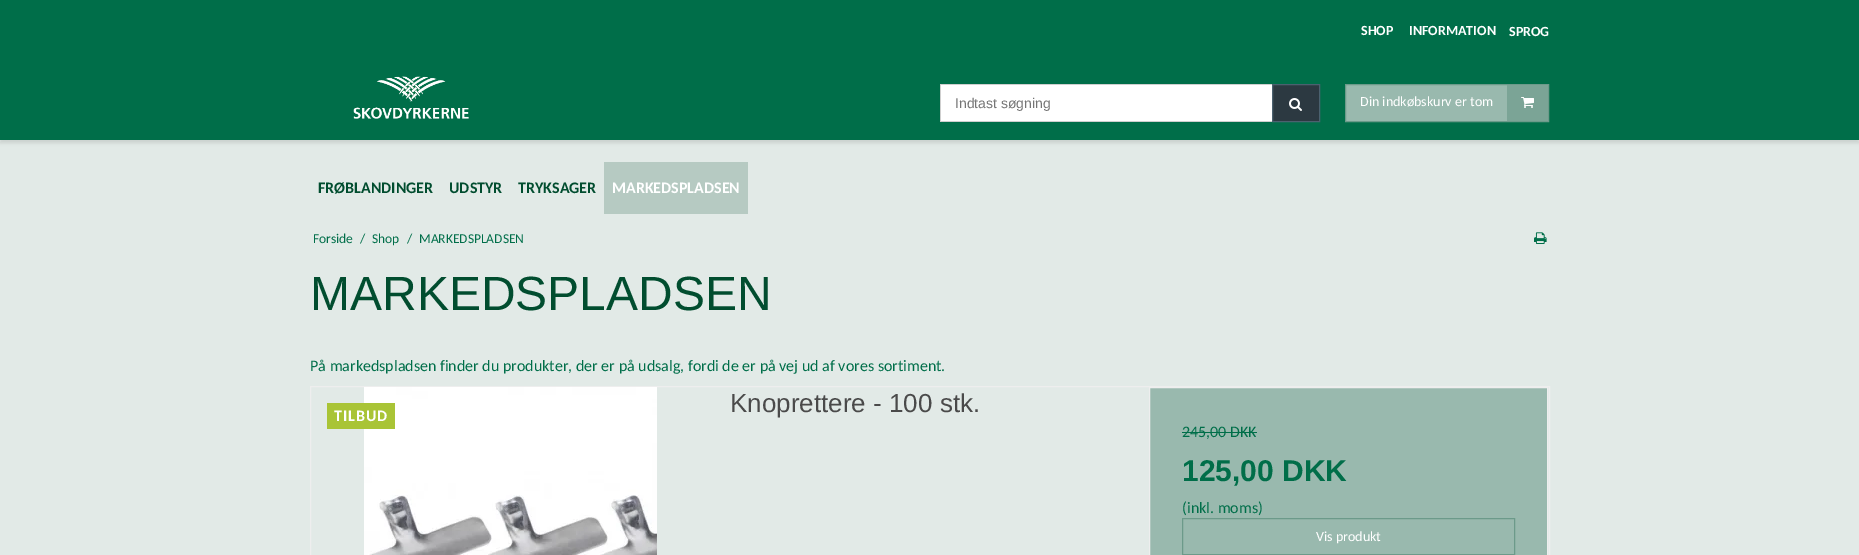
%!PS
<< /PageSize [1859 555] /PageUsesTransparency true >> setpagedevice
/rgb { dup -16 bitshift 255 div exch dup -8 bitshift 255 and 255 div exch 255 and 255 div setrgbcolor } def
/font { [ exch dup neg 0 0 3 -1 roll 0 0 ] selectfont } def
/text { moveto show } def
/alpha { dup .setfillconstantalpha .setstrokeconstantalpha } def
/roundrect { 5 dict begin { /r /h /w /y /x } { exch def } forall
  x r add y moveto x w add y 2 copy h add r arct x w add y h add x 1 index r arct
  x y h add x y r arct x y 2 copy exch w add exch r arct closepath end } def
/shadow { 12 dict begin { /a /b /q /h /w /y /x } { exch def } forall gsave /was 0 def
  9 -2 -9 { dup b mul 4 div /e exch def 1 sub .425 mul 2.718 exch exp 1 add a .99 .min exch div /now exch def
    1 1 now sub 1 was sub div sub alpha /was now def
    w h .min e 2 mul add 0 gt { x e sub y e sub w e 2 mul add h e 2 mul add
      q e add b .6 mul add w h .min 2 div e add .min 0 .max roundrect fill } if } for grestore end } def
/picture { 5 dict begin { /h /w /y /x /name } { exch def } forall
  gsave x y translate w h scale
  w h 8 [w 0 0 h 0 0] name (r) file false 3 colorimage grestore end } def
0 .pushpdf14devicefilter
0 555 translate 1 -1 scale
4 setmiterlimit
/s1 { /Carlito-Bold 14 font 16#FFFFFF rgb } def
/s2 { /LiberationSans-Regular 14 font 16#757575 rgb } def
/s3 { /Carlito-Regular 14 font 16#FFFFFF rgb } def
/s4 { /Carlito-Bold 16 font 16#014D2F rgb } def
/s5 { /Carlito-Bold 16 font 16#FFFFFF rgb } def
/s6 { /Carlito-Regular 13.5 font 16#006E49 rgb } def
/s7 { /LiberationSans-Regular 48 font 16#014D2F rgb } def
/s8 { /Carlito-Regular 16 font 16#006E49 rgb } def
/s9 { /LiberationSans-Regular 26 font 16#4A4A4A rgb } def
/s10 { /LiberationSans-Bold 30 font 16#006E49 rgb } def
16#E2EAE7 rgb
0 0 1859 555 rectfill
16#006E49 rgb
0 0 1859 60 rectfill
s1
(SHOP) 1361 35 text
(INFORMATION) 1409 35 text
(SPROG) 1509 36 text
16#000000 rgb
0 63 1859 80 0 1.5 0.1 shadow
16#006E49 rgb
0 60 1859 80 rectfill
(pic1.raw) 353 76 116 43 picture
16#FFFFFF rgb
941 85 331 36 rectfill
16#CFCFCF rgb
940 84 333 1 rectfill
940 121 333 1 rectfill
940 84 1 38 rectfill
s2
(Indtast søgning) 955 108 text
16#2C3941 rgb
1272.5 84.5 moveto 1319.5 84.5 lineto 1319.5 121.5 lineto 1272.5 121.5 lineto closepath gsave fill grestore
16#4B616F rgb
stroke
(pic2.raw) 1289 98 13 13 picture
16#99B9AE rgb
1346 85 161 36 rectfill
16#6C9A8A rgb
1345.5 84.5 203 37 rectstroke
s3
(Din indkøbskurv er tom) 1360 106 text
16#7BA496 rgb
1507 85 41 36 rectfill
(pic3.raw) 1521 97 13 11 picture
s4
(FRØBLANDINGER) 318 193 text
(UDSTYR) 449 193 text
(TRYKSAGER) 518 193 text
16#B6CAC2 rgb
604 162 144 52 rectfill
s5
(MARKEDSPLADSEN) 612 193 text
s6
(Forside) 313 243 text
(/) 360 243 text
(Shop) 372 243 text
(/) 407 243 text
(MARKEDSPLADSEN) 419 243 text
(pic4.raw) 1534 232 13 12 picture
s7
(MARKEDSPLADSEN) 310 310 text
s8
(På markedspladsen finder du produkter, der er på udsalg, fordi de er på vej ud af vores sortiment.) 310 371 text
16#EEEEEE rgb
310.5 386.5 1239 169 rectstroke
(pic5.raw) 364 387 293 168 picture
16#A9C436 rgb
327 403 68 26 rectfill
/Carlito-Bold 16 font
16#FFFFFF rgb
334 421 moveto 1 0 (TILBUD) ashow
s9
(Knoprettere - 100 stk.) 730 412 text
16#99B9AE rgb
1149.5 387.5 moveto 1547.5 387.5 lineto 1547.5 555.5 lineto 1149.5 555.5 lineto closepath gsave fill grestore
16#EEEEEE rgb
stroke
s8
(245,00 DKK) 1182 437 text
1182 432 75 1 rectfill
s10
(125,00 DKK) 1182 481 text
s8
(\(inkl. moms\)) 1182 513 text
16#6C9A8A rgb
1182.5 518.5 332 36 rectstroke
s3
(Vis produkt) 1316 541 text
.poppdf14devicefilter showpage
